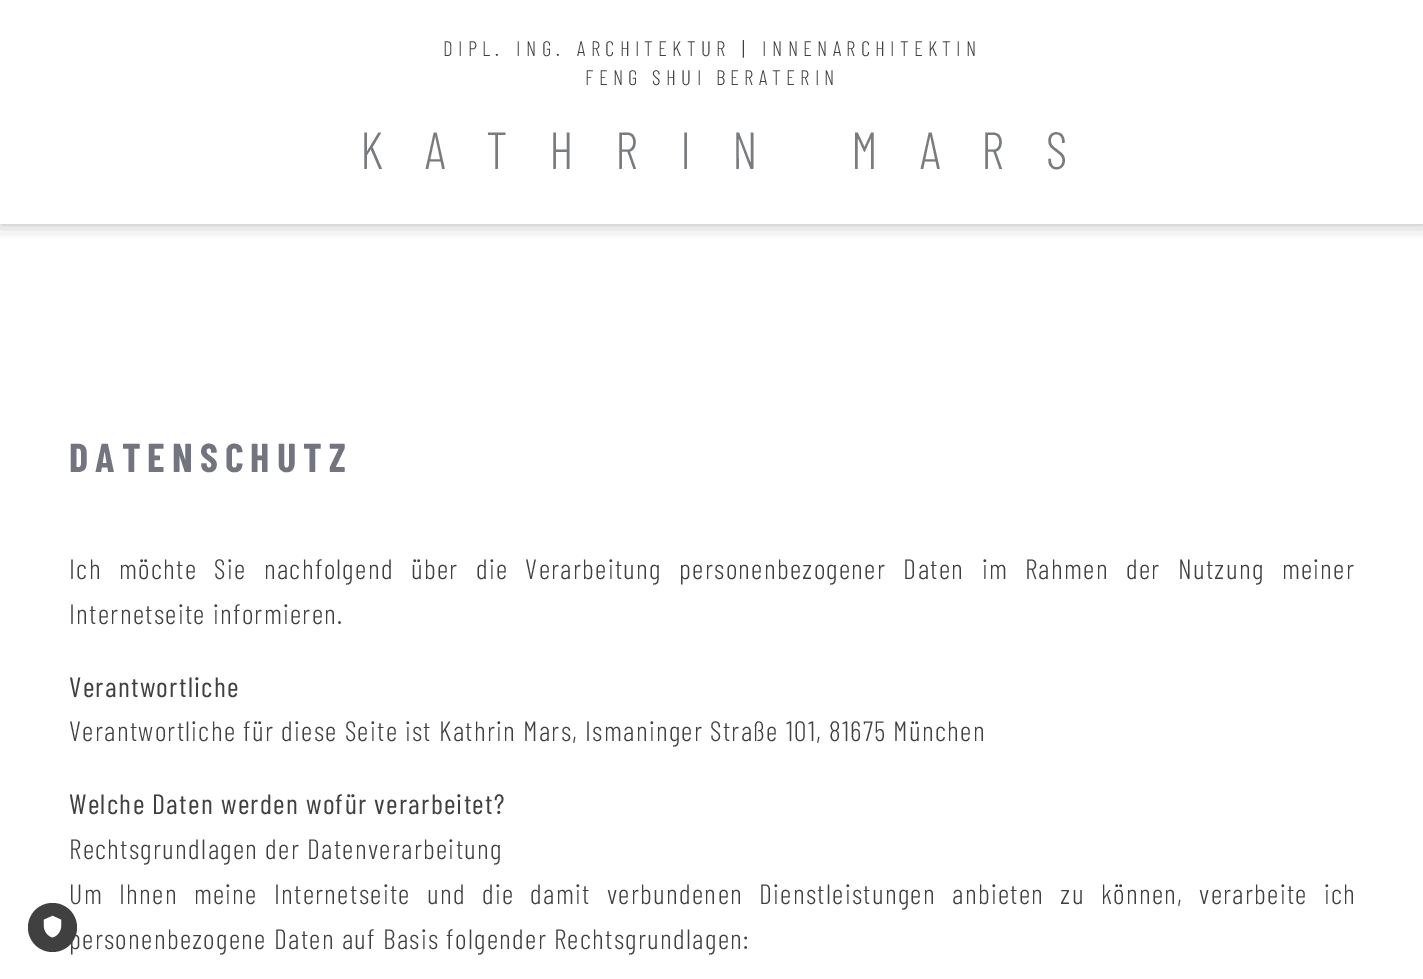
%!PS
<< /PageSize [1423 979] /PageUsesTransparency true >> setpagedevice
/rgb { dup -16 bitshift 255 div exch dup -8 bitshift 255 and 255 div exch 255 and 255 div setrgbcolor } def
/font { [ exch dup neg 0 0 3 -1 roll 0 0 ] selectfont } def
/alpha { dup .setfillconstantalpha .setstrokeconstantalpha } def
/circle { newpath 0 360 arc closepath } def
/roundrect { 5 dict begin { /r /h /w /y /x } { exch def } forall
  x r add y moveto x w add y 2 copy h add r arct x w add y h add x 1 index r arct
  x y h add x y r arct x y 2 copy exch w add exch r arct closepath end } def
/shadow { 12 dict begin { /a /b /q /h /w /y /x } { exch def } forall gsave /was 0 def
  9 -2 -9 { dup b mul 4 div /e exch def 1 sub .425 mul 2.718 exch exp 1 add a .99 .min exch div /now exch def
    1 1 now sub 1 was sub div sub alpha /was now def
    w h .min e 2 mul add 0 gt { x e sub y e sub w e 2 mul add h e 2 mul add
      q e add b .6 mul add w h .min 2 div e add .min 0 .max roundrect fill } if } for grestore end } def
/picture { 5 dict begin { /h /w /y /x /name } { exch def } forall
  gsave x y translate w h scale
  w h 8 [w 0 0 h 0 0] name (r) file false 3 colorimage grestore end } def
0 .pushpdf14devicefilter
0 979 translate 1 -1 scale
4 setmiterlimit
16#FFFFFF rgb
0 0 1423 979 rectfill
gsave
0 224 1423 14 rectclip
16#000000 rgb
0 0 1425 224 0 9 0.3 shadow
grestore
/BarlowCondensed-Light 21 font
16#404040 rgb
443 56 moveto 2.5 0 32 5.25 0 (DIPL. ING. ARCHITEKTUR | INNENARCHITEKTIN) awidthshow
585 85 moveto 5.25 0 (FENG SHUI BERATERIN) ashow
/BarlowCondensed-Light 52.25 font
16#797C7F rgb
360 169 moveto 41.5 0 (KATHRIN MARS) ashow
16#404040 rgb
52.5 927.5 24.5 circle fill
(pic1.raw) 43 915 19 23 picture
/BarlowCondensed-Bold 40.25 font
16#72757F rgb
69 472 moveto 7 0 (DATENSCHUTZ) ashow
/BarlowCondensed-Light 28 font
16#404040 rgb
69 579 moveto 10.25 0 32 1.31 0 (Ich möchte Sie nachfolgend über die Verarbeitung personenbezogener Daten im Rahmen der Nutzung meiner) awidthshow
69 624 moveto 1.31 0 (Internetseite informieren.) ashow
/BarlowCondensed-Regular 28 font
69 697 moveto 1.31 0 (Verantwortliche) ashow
/BarlowCondensed-Light 28 font
69 741 moveto 1.31 0 (Verantwortliche für diese Seite ist Kathrin Mars, Ismaninger Straße 101, 81675 München) ashow
/BarlowCondensed-Regular 28 font
69 814 moveto 1.31 0 (Welche Daten werden wofür verarbeitet?) ashow
/BarlowCondensed-Light 28 font
69 859 moveto 1.31 0 (Rechtsgrundlagen der Datenverarbeitung) ashow
69 904 moveto 9.1 0 32 1.31 0 (Um Ihnen meine Internetseite und die damit verbundenen Dienstleistungen anbieten zu können, verarbeite ich) awidthshow
69 949 moveto 1.31 0 (personenbezogene Daten auf Basis folgender Rechtsgrundlagen:) ashow
.poppdf14devicefilter showpage
